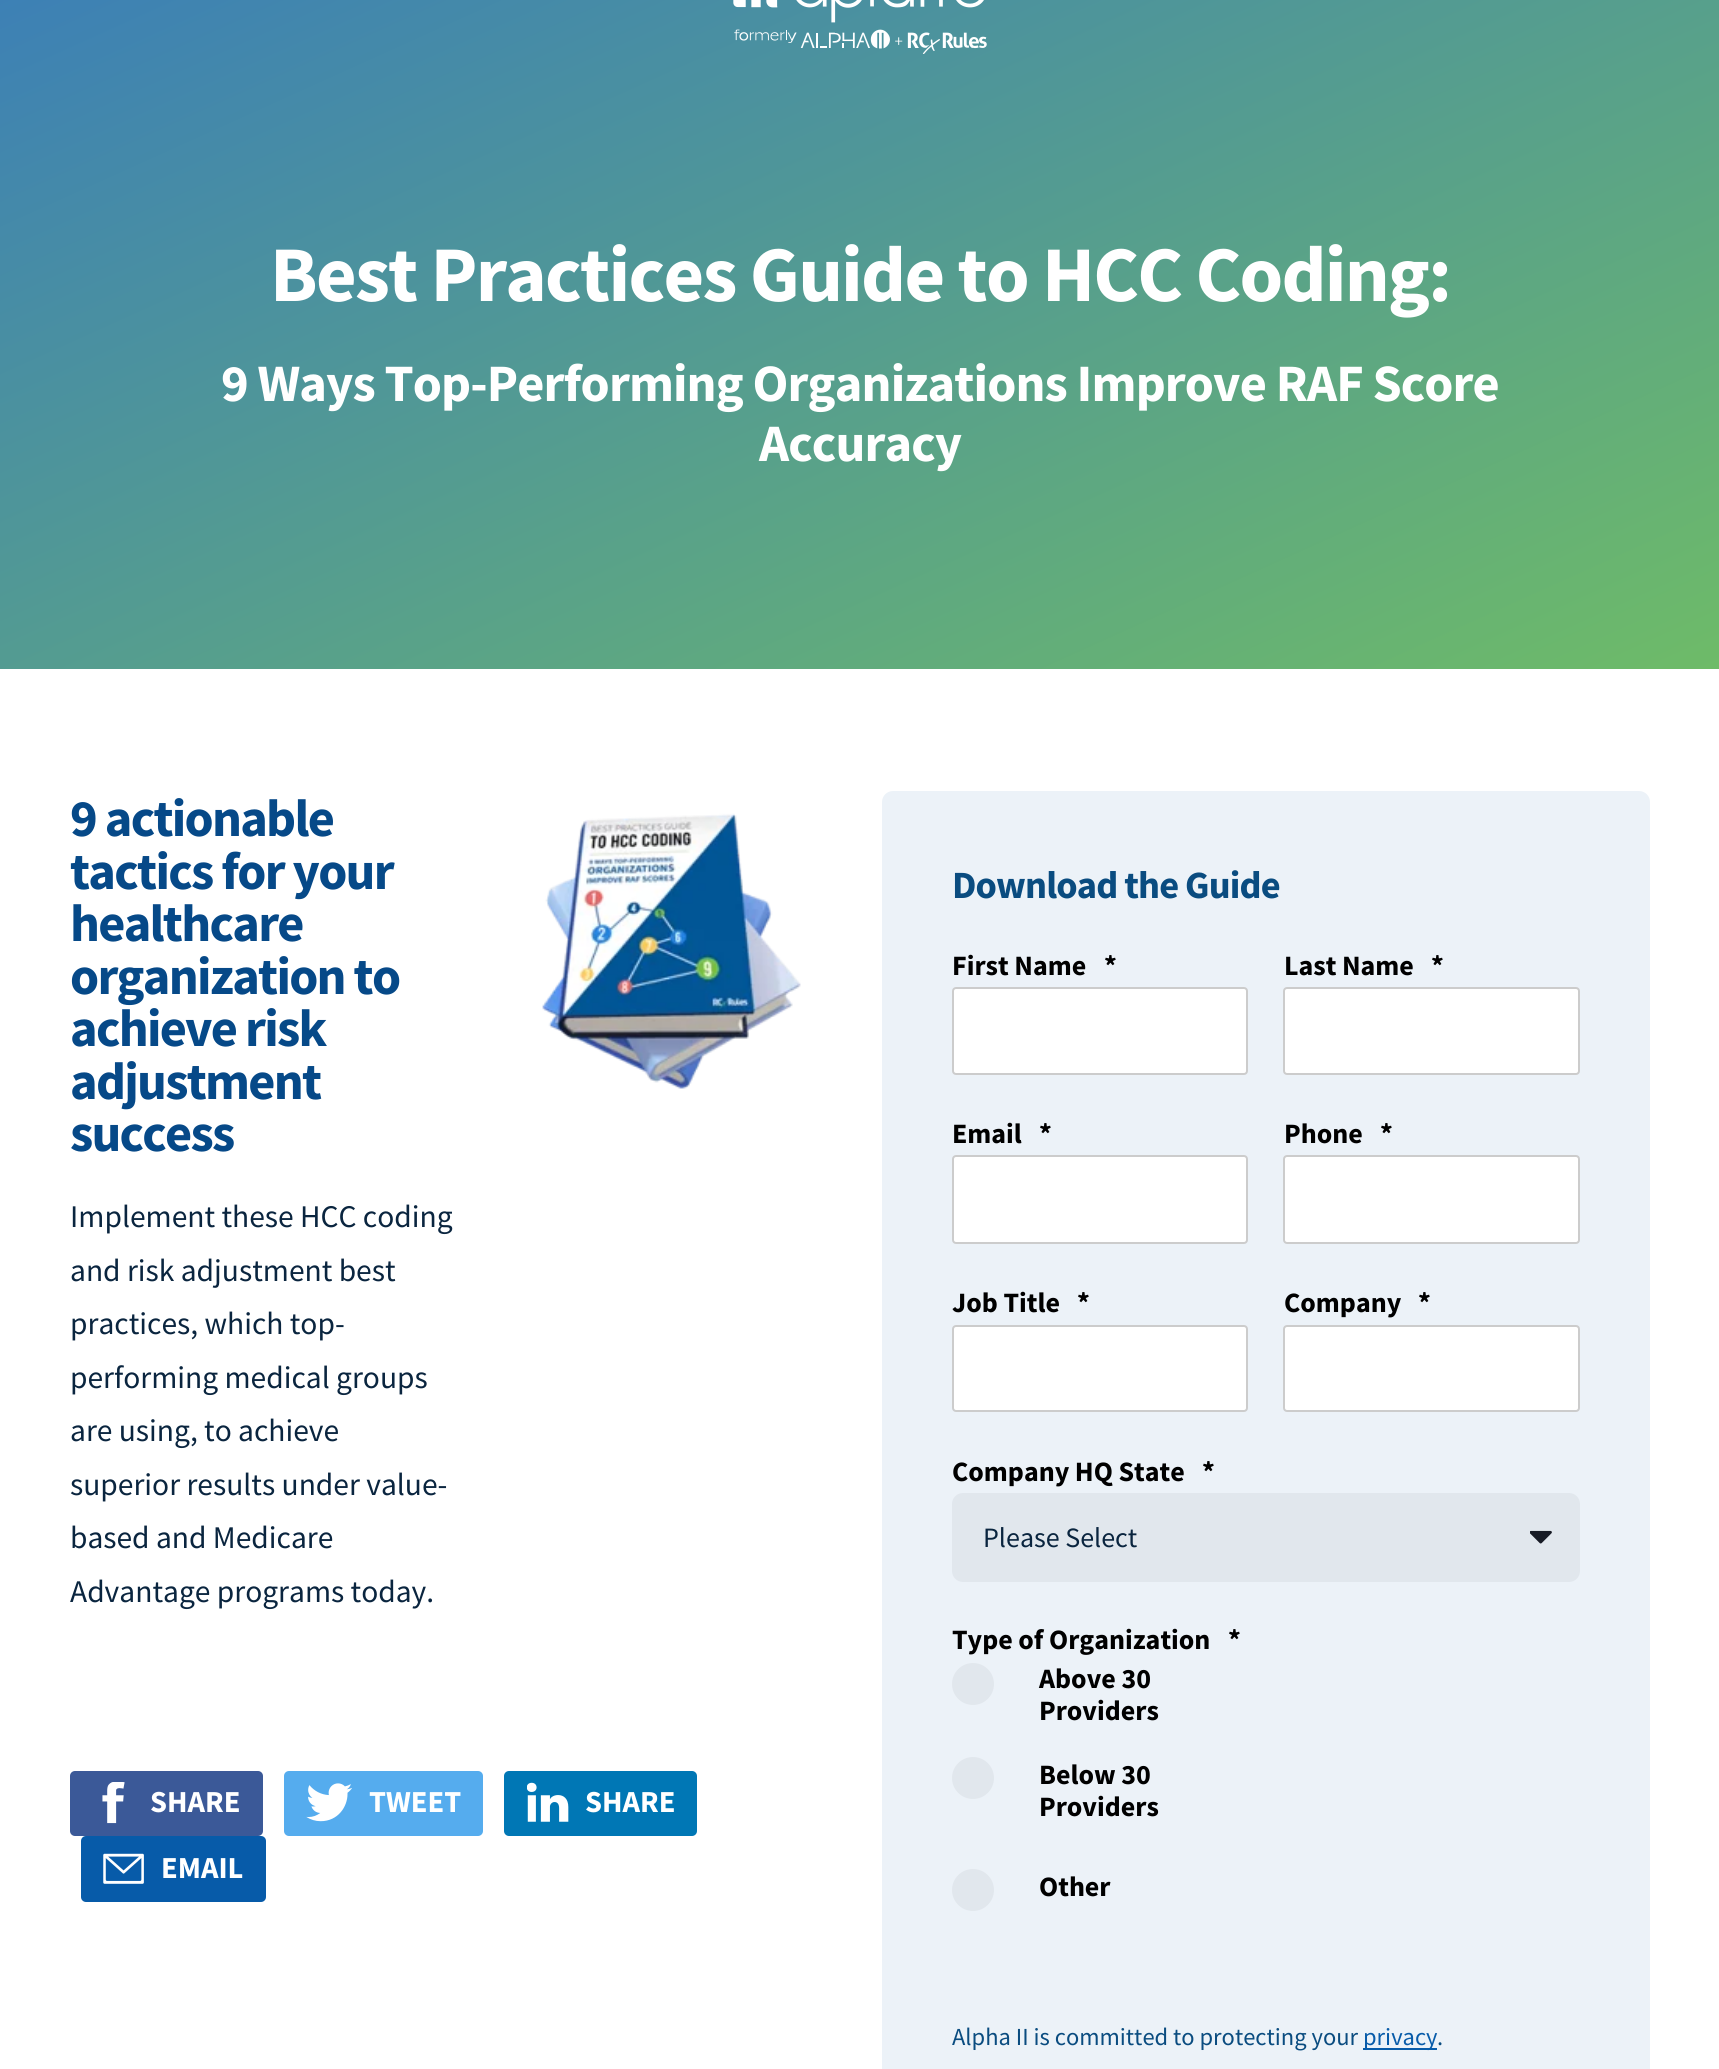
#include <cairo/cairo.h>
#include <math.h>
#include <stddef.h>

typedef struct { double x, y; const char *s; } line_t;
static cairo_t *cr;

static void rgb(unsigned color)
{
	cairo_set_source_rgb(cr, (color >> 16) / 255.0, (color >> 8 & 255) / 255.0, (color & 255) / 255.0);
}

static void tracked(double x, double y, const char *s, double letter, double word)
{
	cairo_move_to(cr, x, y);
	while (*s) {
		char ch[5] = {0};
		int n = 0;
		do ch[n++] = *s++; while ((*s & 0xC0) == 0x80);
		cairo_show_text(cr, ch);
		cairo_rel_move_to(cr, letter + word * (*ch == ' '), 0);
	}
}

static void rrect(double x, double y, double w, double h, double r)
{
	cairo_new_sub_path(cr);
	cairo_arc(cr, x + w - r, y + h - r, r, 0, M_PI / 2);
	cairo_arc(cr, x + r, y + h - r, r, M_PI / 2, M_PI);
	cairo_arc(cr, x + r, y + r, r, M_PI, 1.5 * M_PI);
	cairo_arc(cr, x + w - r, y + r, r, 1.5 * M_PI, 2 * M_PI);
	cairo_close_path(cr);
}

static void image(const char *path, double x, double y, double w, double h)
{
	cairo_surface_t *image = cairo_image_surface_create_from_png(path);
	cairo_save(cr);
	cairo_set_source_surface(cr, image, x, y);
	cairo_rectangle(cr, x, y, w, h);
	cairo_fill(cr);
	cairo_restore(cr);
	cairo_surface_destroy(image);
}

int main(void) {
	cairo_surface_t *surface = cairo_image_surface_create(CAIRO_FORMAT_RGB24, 1719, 2069);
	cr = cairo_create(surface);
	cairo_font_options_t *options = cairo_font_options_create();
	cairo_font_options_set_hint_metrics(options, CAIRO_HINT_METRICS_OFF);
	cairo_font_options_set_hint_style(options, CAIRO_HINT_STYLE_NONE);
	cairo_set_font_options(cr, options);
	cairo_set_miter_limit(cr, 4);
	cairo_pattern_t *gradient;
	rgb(0xffffff);
	cairo_paint(cr);
	gradient = cairo_pattern_create_linear(569, -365, 1152, 925);
	cairo_pattern_add_color_stop_rgba(gradient, 0, 0.224, 0.486, 0.733, 1);
	cairo_pattern_add_color_stop_rgba(gradient, 1, 0.431, 0.733, 0.408, 1);
	cairo_set_source(cr, gradient);
	cairo_pattern_destroy(gradient);
	cairo_rectangle(cr, 0, 0, 1719, 669);
	cairo_fill(cr);
	image("img/1.png", 733, 0, 254, 54);
	image("img/2.png", 542, 813, 259, 276);
	rgb(0x3b5998);
	rrect(70, 1771, 193, 65, 5);
	cairo_fill(cr);
	image("img/3.png", 102, 1782, 23, 42);
	rgb(0x55acee);
	rrect(284, 1771, 199, 65, 5);
	cairo_fill(cr);
	image("img/4.png", 306, 1783, 46, 39);
	rgb(0x0077b5);
	rrect(504, 1771, 193, 65, 5);
	cairo_fill(cr);
	image("img/5.png", 527, 1782, 42, 40);
	rgb(0x075ba9);
	rrect(81, 1836, 185, 66, 5);
	cairo_fill(cr);
	image("img/6.png", 103, 1853, 41, 31);
	rgb(0xecf2f8);
	rrect(882, 791, 768, 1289, 11);
	cairo_fill(cr);
	rgb(0xffffff);
	rrect(953, 988, 294, 86, 3);
	cairo_fill_preserve(cr);
	rgb(0xcccccc);
	cairo_stroke(cr);
	rgb(0xffffff);
	rrect(1284, 988, 295, 86, 3);
	cairo_fill_preserve(cr);
	rgb(0xcccccc);
	cairo_stroke(cr);
	rgb(0xffffff);
	rrect(953, 1156, 294, 87, 3);
	cairo_fill_preserve(cr);
	rgb(0xcccccc);
	cairo_stroke(cr);
	rgb(0xffffff);
	rrect(1284, 1156, 295, 87, 3);
	cairo_fill_preserve(cr);
	rgb(0xcccccc);
	cairo_stroke(cr);
	rgb(0xffffff);
	rrect(953, 1326, 294, 85, 3);
	cairo_fill_preserve(cr);
	rgb(0xcccccc);
	cairo_stroke(cr);
	rgb(0xffffff);
	rrect(1284, 1326, 295, 85, 3);
	cairo_fill_preserve(cr);
	rgb(0xcccccc);
	cairo_stroke(cr);
	rgb(0xe1e7ed);
	rrect(952, 1493, 628, 89, 11);
	cairo_fill(cr);
	image("img/7.png", 1530, 1530, 22, 14);
	cairo_arc(cr, 973, 1684, 21, 0, 2 * M_PI);
	cairo_fill(cr);
	cairo_arc(cr, 973, 1778, 21, 0, 2 * M_PI);
	cairo_fill(cr);
	cairo_arc(cr, 973, 1890, 21, 0, 2 * M_PI);
	cairo_fill(cr);
	rgb(0x075ba9);
	cairo_rectangle(cr, 1363, 2048, 74, 2);
	cairo_fill(cr);
	cairo_select_font_face(cr, "Source Sans Pro", CAIRO_FONT_SLANT_NORMAL, CAIRO_FONT_WEIGHT_BOLD);
	cairo_set_font_size(cr, 78.75);
	rgb(0xffffff);
	tracked(270, 301, "Best Practices Guide to HCC Coding:", -1.75, 0);
	cairo_set_font_size(cr, 52.5);
	tracked(221, 401, "9 Ways Top-Performing Organizations Improve RAF Score", -0.88, 0);
	tracked(759, 461, "Accuracy", -0.88, 0);
	rgb(0x064988);
	{
		static const line_t items[] = {
			{70, 836, "9 actionable"},
			{70, 889, "tactics for your"},
			{70, 941, "healthcare"},
			{70, 994, "organization to"},
			{70, 1046, "achieve risk"},
			{70, 1099, "adjustment"},
			{70, 1151, "success"},
		};
		for (size_t i = 0; i < sizeof items / sizeof *items; i++) {
			tracked(items[i].x, items[i].y, items[i].s, -1.75, 0);
		}
	}
	cairo_select_font_face(cr, "Source Sans Pro", CAIRO_FONT_SLANT_NORMAL, CAIRO_FONT_WEIGHT_NORMAL);
	cairo_set_font_size(cr, 31.5);
	rgb(0x0a253f);
	{
		static const line_t items[] = {
			{70, 1227, "Implement these HCC coding"},
			{70, 1281, "and risk adjustment best"},
			{70, 1334, "practices, which top-"},
			{70, 1388, "performing medical groups"},
			{70, 1441, "are using, to achieve"},
			{70, 1495, "superior results under value-"},
			{70, 1548, "based and Medicare"},
			{70, 1602, "Advantage programs today."},
		};
		for (size_t i = 0; i < sizeof items / sizeof *items; i++) {
			cairo_move_to(cr, items[i].x, items[i].y);
			cairo_show_text(cr, items[i].s);
		}
	}
	cairo_select_font_face(cr, "Source Sans Pro", CAIRO_FONT_SLANT_NORMAL, CAIRO_FONT_WEIGHT_BOLD);
	cairo_set_font_size(cr, 30.5);
	rgb(0xffffff);
	{
		static const line_t items[] = {
			{150, 1812, "SHARE"},
			{369, 1812, "TWEET"},
			{585, 1812, "SHARE"},
			{161, 1878, "EMAIL"},
		};
		for (size_t i = 0; i < sizeof items / sizeof *items; i++) {
			cairo_move_to(cr, items[i].x, items[i].y);
			cairo_show_text(cr, items[i].s);
		}
	}
	cairo_set_font_size(cr, 38.5);
	rgb(0x0a4c80);
	tracked(952, 898, "Download the Guide", -0.88, 0);
	cairo_set_font_size(cr, 28);
	rgb(0x000000);
	{
		static const line_t items[] = {
			{952, 975, "First Name"},
			{1104, 975, "*"},
			{1284, 975, "Last Name"},
			{1431, 975, "*"},
			{952, 1143, "Email"},
			{1039, 1143, "*"},
			{1284, 1143, "Phone"},
			{1380, 1143, "*"},
			{952, 1312, "Job Title"},
			{1077, 1312, "*"},
			{1284, 1312, "Company"},
			{1418, 1312, "*"},
			{952, 1481, "Company HQ State"},
			{1202, 1481, "*"},
		};
		for (size_t i = 0; i < sizeof items / sizeof *items; i++) {
			cairo_move_to(cr, items[i].x, items[i].y);
			cairo_show_text(cr, items[i].s);
		}
	}
	cairo_select_font_face(cr, "Source Sans Pro", CAIRO_FONT_SLANT_NORMAL, CAIRO_FONT_WEIGHT_NORMAL);
	rgb(0x0a253f);
	cairo_move_to(cr, 983, 1547);
	cairo_show_text(cr, "Please Select");
	cairo_select_font_face(cr, "Source Sans Pro", CAIRO_FONT_SLANT_NORMAL, CAIRO_FONT_WEIGHT_BOLD);
	rgb(0x000000);
	{
		static const line_t items[] = {
			{952, 1649, "Type of Organization"},
			{1228, 1649, "*"},
			{1039, 1688, "Above 30"},
			{1039, 1720, "Providers"},
			{1039, 1784, "Below 30"},
			{1039, 1816, "Providers"},
			{1039, 1896, "Other"},
		};
		for (size_t i = 0; i < sizeof items / sizeof *items; i++) {
			cairo_move_to(cr, items[i].x, items[i].y);
			cairo_show_text(cr, items[i].s);
		}
	}
	cairo_select_font_face(cr, "Source Sans Pro", CAIRO_FONT_SLANT_NORMAL, CAIRO_FONT_WEIGHT_NORMAL);
	cairo_set_font_size(cr, 24.5);
	rgb(0x0a4c80);
	cairo_move_to(cr, 952, 2045);
	cairo_show_text(cr, "Alpha II is committed to protecting your");
	rgb(0x075ba9);
	cairo_move_to(cr, 1363, 2045);
	cairo_show_text(cr, "privacy");
	rgb(0x0a4c80);
	cairo_move_to(cr, 1437, 2045);
	cairo_show_text(cr, ".");
	cairo_surface_write_to_png(surface, "page.png");
	cairo_font_options_destroy(options);
	cairo_destroy(cr);
	cairo_surface_destroy(surface);
	return 0;
}
